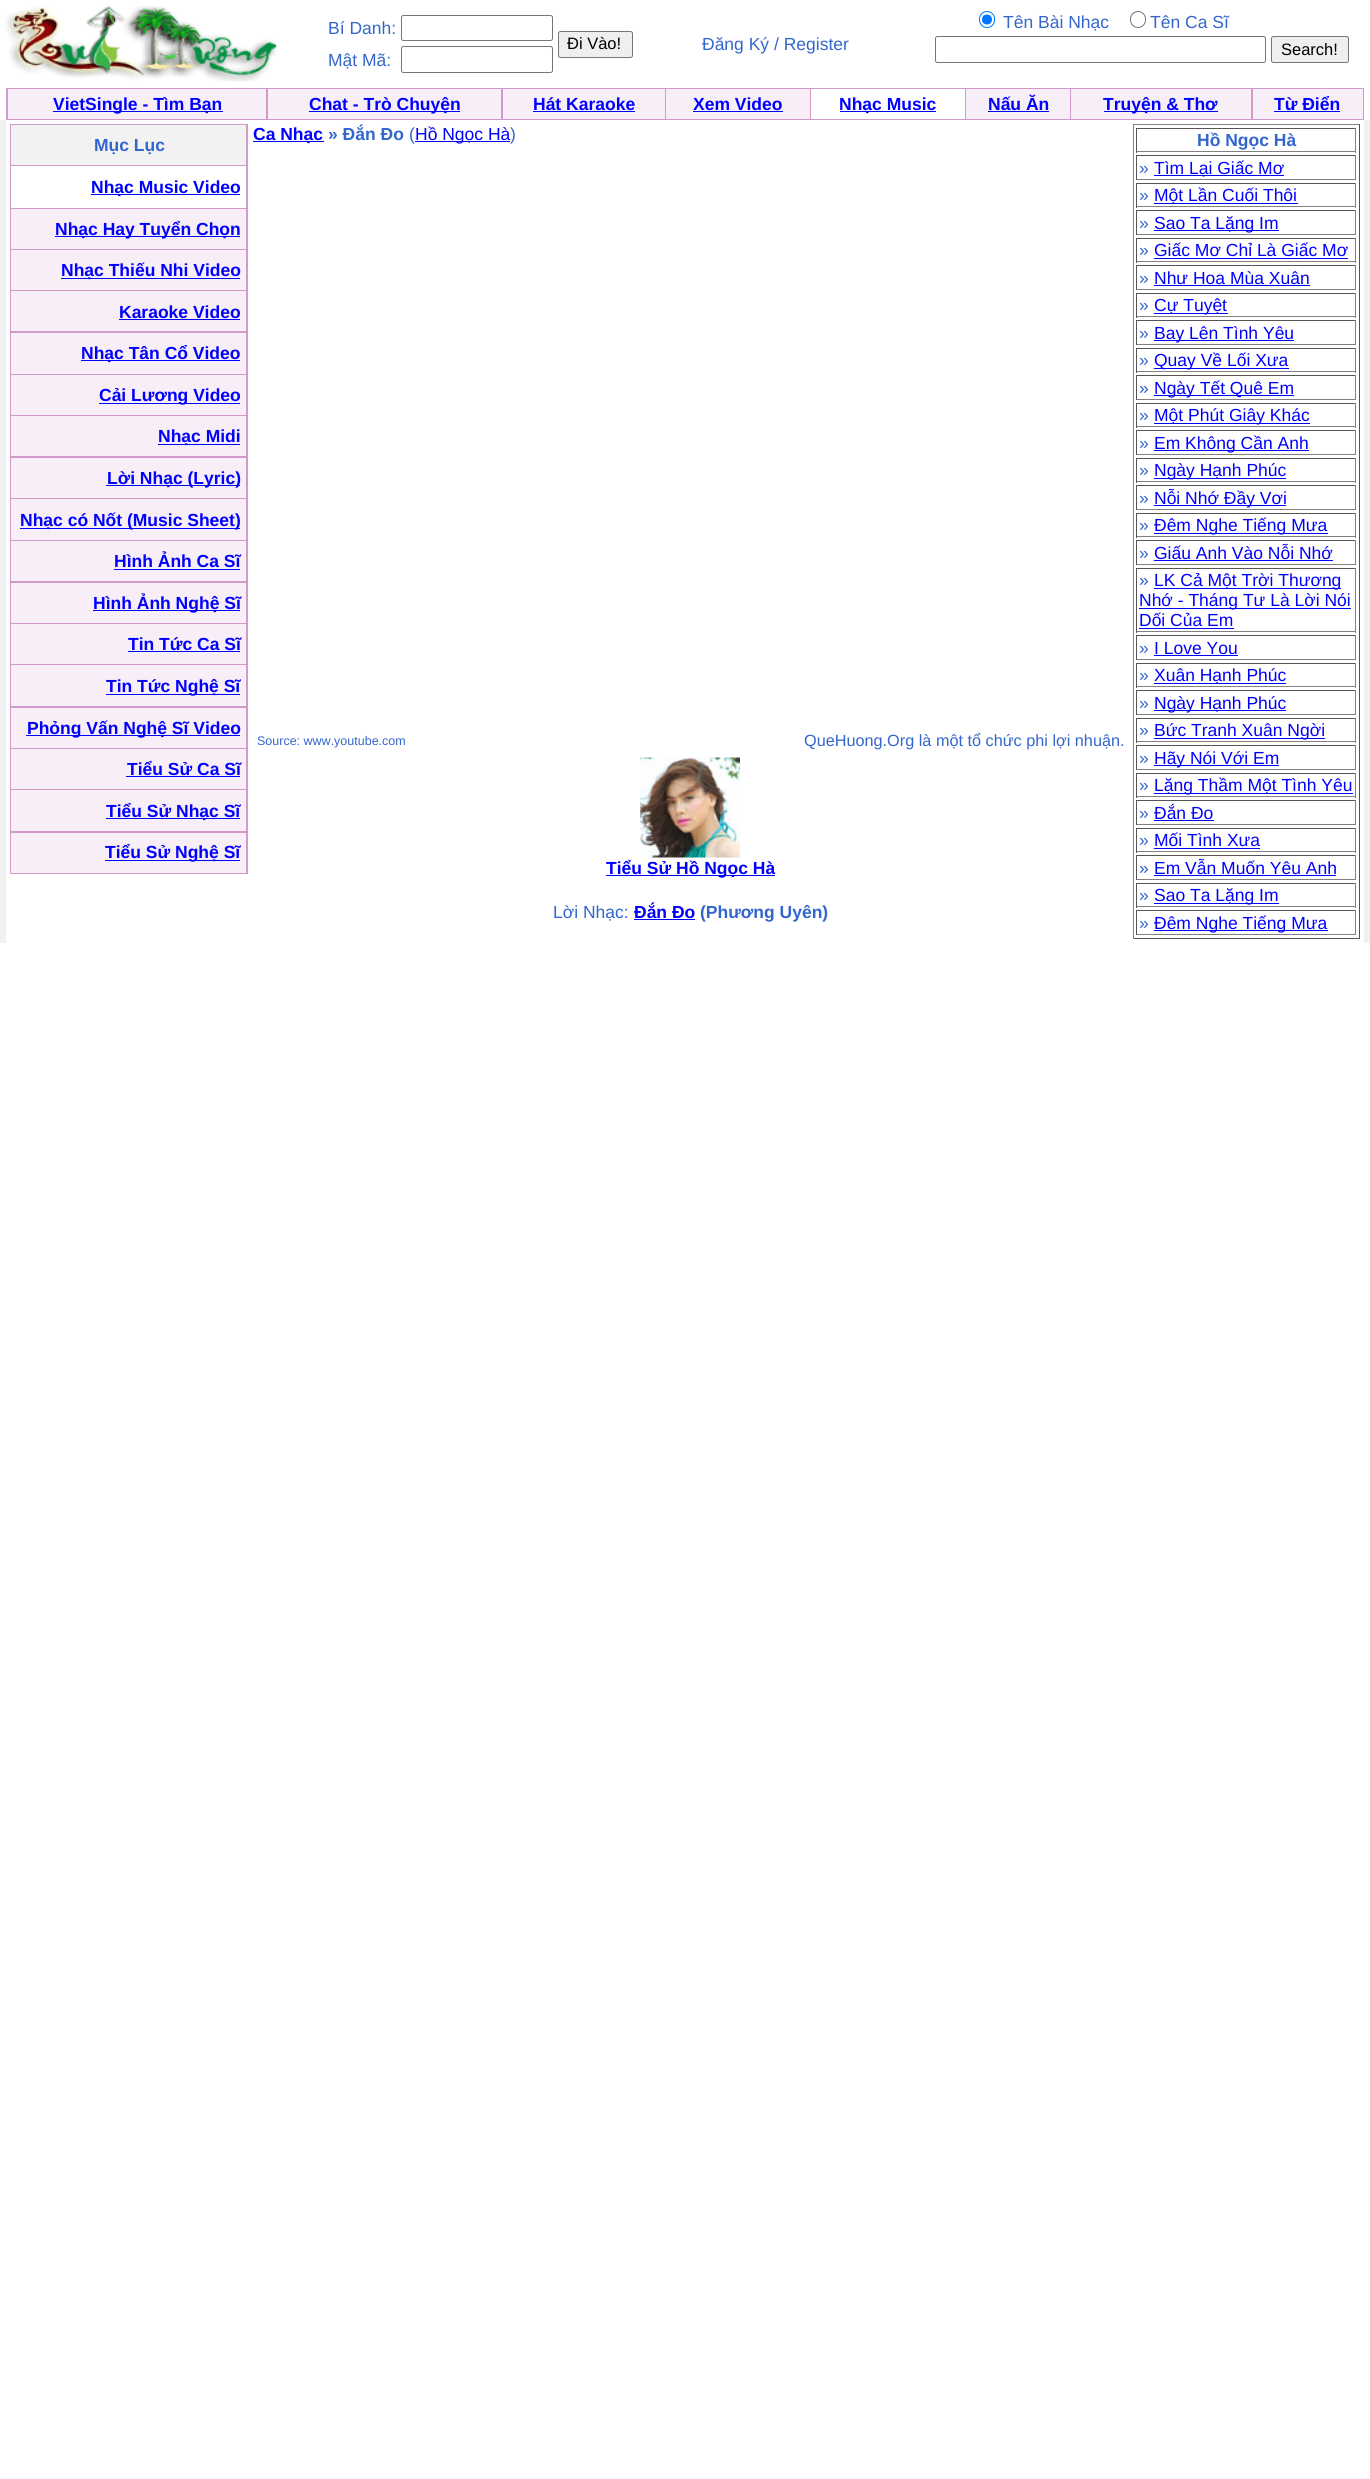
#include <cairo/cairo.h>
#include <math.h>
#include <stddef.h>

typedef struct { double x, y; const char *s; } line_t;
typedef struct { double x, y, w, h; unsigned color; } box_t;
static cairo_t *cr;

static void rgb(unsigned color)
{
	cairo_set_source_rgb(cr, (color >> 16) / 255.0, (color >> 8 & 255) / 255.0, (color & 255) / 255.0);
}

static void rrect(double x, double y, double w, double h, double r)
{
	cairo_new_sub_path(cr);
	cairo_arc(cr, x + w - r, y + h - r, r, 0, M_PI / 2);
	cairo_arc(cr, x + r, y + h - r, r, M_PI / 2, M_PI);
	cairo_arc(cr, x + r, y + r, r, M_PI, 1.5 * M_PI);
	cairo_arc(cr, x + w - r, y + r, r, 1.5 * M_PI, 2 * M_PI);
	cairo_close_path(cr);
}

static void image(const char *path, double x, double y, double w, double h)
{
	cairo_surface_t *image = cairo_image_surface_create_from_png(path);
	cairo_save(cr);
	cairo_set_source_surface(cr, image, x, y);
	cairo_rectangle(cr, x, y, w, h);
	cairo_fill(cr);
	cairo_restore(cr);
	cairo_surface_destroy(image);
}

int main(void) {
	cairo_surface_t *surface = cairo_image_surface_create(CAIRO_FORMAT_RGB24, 1370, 2479);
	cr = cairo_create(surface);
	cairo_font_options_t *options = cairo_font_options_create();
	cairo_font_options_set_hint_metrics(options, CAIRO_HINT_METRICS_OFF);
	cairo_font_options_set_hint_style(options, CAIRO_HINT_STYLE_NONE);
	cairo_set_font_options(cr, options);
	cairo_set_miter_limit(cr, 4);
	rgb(0xffffff);
	cairo_paint(cr);
	image("img/1.png", 5, 6, 272, 76);
	rrect(401.5, 15.5, 151, 25, 2);
	rgb(0x767676);
	cairo_set_line_width(cr, 1);
	cairo_stroke(cr);
	rgb(0xefefef);
	rrect(558.5, 31.5, 74, 26, 2);
	cairo_fill_preserve(cr);
	rgb(0x767676);
	cairo_stroke(cr);
	rrect(401.5, 46.5, 151, 26, 2);
	cairo_stroke(cr);
	rrect(979.5, 11.5, 15, 16, 7.5);
	rgb(0x0075ff);
	cairo_stroke(cr);
	cairo_arc(cr, 987, 19.5, 5, 0, 2 * M_PI);
	cairo_fill(cr);
	rrect(1130.5, 11.5, 15, 16, 7.5);
	rgb(0x767676);
	cairo_stroke(cr);
	rrect(935.5, 36.5, 330, 26, 2);
	cairo_stroke(cr);
	rgb(0xefefef);
	rrect(1271.5, 36.5, 77, 26, 2);
	cairo_fill_preserve(cr);
	rgb(0x767676);
	cairo_stroke(cr);
	{
		static const box_t items[] = {
			{6, 88, 1358, 32, 0xd29ac8},
			{8, 89, 258, 30, 0xf7eef7},
			{53, 111, 170, 1, 0x0000ff},
			{268, 89, 233, 30, 0xf7eef7},
			{309, 111, 151, 1, 0x0000ff},
			{503, 89, 162, 30, 0xf7eef7},
			{533, 111, 102, 1, 0x0000ff},
			{666, 89, 144, 30, 0xf7eef7},
			{693, 111, 90, 1, 0x0000ff},
			{811, 89, 154, 30, 0xffffff},
			{840, 111, 96, 1, 0x0000ff},
			{966, 89, 104, 30, 0xf7eef7},
			{988, 111, 61, 1, 0x0000ff},
			{1071, 89, 180, 30, 0xf7eef7},
			{1104, 111, 114, 1, 0x0000ff},
			{1253, 89, 110, 30, 0xf7eef7},
			{1274, 111, 66, 1, 0x0000ff},
			{0, 120, 1370, 823, 0xf1f1f1},
			{6, 120, 1358, 823, 0xffffff},
			{10, 124, 238, 750, 0xd29ac8},
			{11, 125, 235, 40, 0xf2f2f2},
			{11, 166, 235, 42, 0xffffff},
			{91, 194, 149, 1, 0x0000ff},
			{11, 209, 235, 40, 0xf7eef7},
			{55, 236, 185, 1, 0x0000ff},
			{11, 250, 235, 40, 0xf7eef7},
			{61, 278, 179, 1, 0x0000ff},
			{11, 291, 235, 40, 0xf7eef7},
			{119, 319, 121, 1, 0x0000ff},
			{11, 333, 235, 41, 0xf7eef7},
			{81, 360, 159, 1, 0x0000ff},
			{11, 375, 235, 40, 0xf7eef7},
			{99, 403, 141, 1, 0x0000ff},
			{11, 416, 235, 40, 0xf7eef7},
			{158, 444, 82, 1, 0x0000ff},
			{11, 458, 235, 40, 0xf7eef7},
			{106, 485, 134, 1, 0x0000ff},
			{11, 499, 235, 41, 0xf7eef7},
			{20, 528, 220, 1, 0x0000ff},
			{11, 541, 235, 40, 0xf7eef7},
			{114, 569, 126, 1, 0x0000ff},
			{11, 583, 235, 40, 0xf7eef7},
			{93, 610, 147, 1, 0x0000ff},
			{11, 624, 235, 40, 0xf7eef7},
			{128, 651, 112, 1, 0x0000ff},
			{11, 665, 235, 41, 0xf7eef7},
			{106, 694, 134, 1, 0x0000ff},
			{11, 708, 235, 40, 0xf7eef7},
			{26, 735, 214, 1, 0x0000ff},
			{11, 749, 235, 40, 0xf7eef7},
			{126, 776, 114, 1, 0x0000ff},
			{11, 790, 235, 41, 0xf7eef7},
			{106, 818, 134, 1, 0x0000ff},
			{11, 833, 235, 40, 0xf7eef7},
			{105, 860, 135, 1, 0x0000ff},
			{253, 141, 71, 1, 0x0000ff},
			{415, 141, 95, 1, 0x0000ff},
		};
		for (size_t i = 0; i < sizeof items / sizeof *items; i++) {
			rgb(items[i].color);
			cairo_rectangle(cr, items[i].x, items[i].y, items[i].w, items[i].h);
			cairo_fill(cr);
		}
	}
	image("img/2.png", 640, 757, 100, 101);
	{
		static const box_t items[] = {
			{606, 875, 169, 1, 0x0000ff},
			{634, 919, 61, 1, 0x0000ff},
			{1133, 124, 227, 1, 0x808080},
			{1359, 124, 1, 815, 0x555555},
			{1133, 938, 227, 1, 0x555555},
			{1133, 124, 1, 815, 0x808080},
			{1136, 128, 220, 1, 0x555555},
			{1355, 128, 1, 25, 0x808080},
			{1136, 151, 220, 1, 0x808080},
			{1136, 128, 1, 25, 0x555555},
			{1136, 155, 220, 1, 0x555555},
			{1355, 155, 1, 25, 0x808080},
			{1136, 179, 220, 1, 0x808080},
			{1136, 155, 1, 25, 0x555555},
			{1154, 175, 130, 1, 0x0000ff},
			{1136, 183, 220, 1, 0x555555},
			{1355, 183, 1, 25, 0x808080},
			{1136, 206, 220, 1, 0x808080},
			{1136, 183, 1, 25, 0x555555},
			{1154, 203, 144, 1, 0x0000ff},
			{1136, 210, 220, 1, 0x555555},
			{1355, 210, 1, 25, 0x808080},
			{1136, 234, 220, 1, 0x808080},
			{1136, 210, 1, 25, 0x555555},
			{1154, 230, 125, 1, 0x0000ff},
			{1136, 238, 220, 1, 0x555555},
			{1355, 238, 1, 25, 0x808080},
			{1136, 261, 220, 1, 0x808080},
			{1136, 238, 1, 25, 0x555555},
			{1154, 258, 194, 1, 0x0000ff},
			{1136, 265, 220, 1, 0x555555},
			{1355, 265, 1, 25, 0x808080},
			{1136, 289, 220, 1, 0x808080},
			{1136, 265, 1, 25, 0x555555},
			{1154, 285, 156, 1, 0x0000ff},
			{1136, 293, 220, 1, 0x555555},
			{1355, 293, 1, 25, 0x808080},
			{1136, 316, 220, 1, 0x808080},
			{1136, 293, 1, 25, 0x555555},
			{1154, 313, 74, 1, 0x0000ff},
			{1136, 320, 220, 1, 0x555555},
			{1355, 320, 1, 25, 0x808080},
			{1136, 344, 220, 1, 0x808080},
			{1136, 320, 1, 25, 0x555555},
			{1154, 340, 140, 1, 0x0000ff},
			{1136, 348, 220, 1, 0x555555},
			{1355, 348, 1, 25, 0x808080},
			{1136, 371, 220, 1, 0x808080},
			{1136, 348, 1, 25, 0x555555},
			{1154, 368, 135, 1, 0x0000ff},
			{1136, 375, 220, 1, 0x555555},
			{1355, 375, 1, 25, 0x808080},
			{1136, 399, 220, 1, 0x808080},
			{1136, 375, 1, 25, 0x555555},
			{1154, 395, 140, 1, 0x0000ff},
			{1136, 403, 220, 1, 0x555555},
			{1355, 403, 1, 25, 0x808080},
			{1136, 426, 220, 1, 0x808080},
			{1136, 403, 1, 25, 0x555555},
			{1154, 423, 156, 1, 0x0000ff},
			{1136, 430, 220, 1, 0x555555},
			{1355, 430, 1, 25, 0x808080},
			{1136, 454, 220, 1, 0x808080},
			{1136, 430, 1, 25, 0x555555},
			{1154, 450, 155, 1, 0x0000ff},
			{1136, 458, 220, 1, 0x555555},
			{1355, 458, 1, 25, 0x808080},
			{1136, 481, 220, 1, 0x808080},
			{1136, 458, 1, 25, 0x555555},
			{1154, 478, 132, 1, 0x0000ff},
			{1136, 485, 220, 1, 0x555555},
			{1355, 485, 1, 25, 0x808080},
			{1136, 509, 220, 1, 0x808080},
			{1136, 485, 1, 25, 0x555555},
			{1154, 505, 132, 1, 0x0000ff},
			{1136, 513, 220, 1, 0x555555},
			{1355, 513, 1, 25, 0x808080},
			{1136, 536, 220, 1, 0x808080},
			{1136, 513, 1, 25, 0x555555},
			{1154, 533, 174, 1, 0x0000ff},
			{1136, 540, 220, 1, 0x555555},
			{1355, 540, 1, 25, 0x808080},
			{1136, 564, 220, 1, 0x808080},
			{1136, 540, 1, 25, 0x555555},
			{1154, 560, 179, 1, 0x0000ff},
			{1136, 568, 220, 1, 0x555555},
			{1355, 568, 1, 65, 0x808080},
			{1136, 631, 220, 1, 0x808080},
			{1136, 568, 1, 65, 0x555555},
			{1154, 588, 187, 1, 0x0000ff},
			{1139, 608, 212, 1, 0x0000ff},
			{1139, 628, 95, 1, 0x0000ff},
			{1136, 635, 220, 1, 0x555555},
			{1355, 635, 1, 25, 0x808080},
			{1136, 659, 220, 1, 0x808080},
			{1136, 635, 1, 25, 0x555555},
			{1154, 655, 84, 1, 0x0000ff},
			{1136, 663, 220, 1, 0x555555},
			{1355, 663, 1, 25, 0x808080},
			{1136, 686, 220, 1, 0x808080},
			{1136, 663, 1, 25, 0x555555},
			{1154, 683, 132, 1, 0x0000ff},
			{1136, 690, 220, 1, 0x555555},
			{1355, 690, 1, 25, 0x808080},
			{1136, 714, 220, 1, 0x808080},
			{1136, 690, 1, 25, 0x555555},
			{1154, 710, 132, 1, 0x0000ff},
			{1136, 718, 220, 1, 0x555555},
			{1355, 718, 1, 25, 0x808080},
			{1136, 741, 220, 1, 0x808080},
			{1136, 718, 1, 25, 0x555555},
			{1154, 738, 171, 1, 0x0000ff},
			{1136, 745, 220, 1, 0x555555},
			{1355, 745, 1, 25, 0x808080},
			{1136, 769, 220, 1, 0x808080},
			{1136, 745, 1, 25, 0x555555},
			{1154, 765, 125, 1, 0x0000ff},
			{1136, 773, 220, 1, 0x555555},
			{1355, 773, 1, 25, 0x808080},
			{1136, 796, 220, 1, 0x808080},
			{1136, 773, 1, 25, 0x555555},
			{1154, 793, 199, 1, 0x0000ff},
			{1136, 800, 220, 1, 0x555555},
			{1355, 800, 1, 25, 0x808080},
			{1136, 824, 220, 1, 0x808080},
			{1136, 800, 1, 25, 0x555555},
			{1154, 820, 60, 1, 0x0000ff},
			{1136, 828, 220, 1, 0x555555},
			{1355, 828, 1, 25, 0x808080},
			{1136, 851, 220, 1, 0x808080},
			{1136, 828, 1, 25, 0x555555},
			{1154, 848, 106, 1, 0x0000ff},
			{1136, 855, 220, 1, 0x555555},
			{1355, 855, 1, 25, 0x808080},
			{1136, 879, 220, 1, 0x808080},
			{1136, 855, 1, 25, 0x555555},
			{1154, 875, 182, 1, 0x0000ff},
			{1136, 883, 220, 1, 0x555555},
			{1355, 883, 1, 25, 0x808080},
			{1136, 906, 220, 1, 0x808080},
			{1136, 883, 1, 25, 0x555555},
			{1154, 903, 125, 1, 0x0000ff},
			{1136, 910, 220, 1, 0x555555},
			{1355, 910, 1, 25, 0x808080},
			{1136, 934, 220, 1, 0x808080},
			{1136, 910, 1, 25, 0x555555},
			{1154, 930, 174, 1, 0x0000ff},
		};
		for (size_t i = 0; i < sizeof items / sizeof *items; i++) {
			rgb(items[i].color);
			cairo_rectangle(cr, items[i].x, items[i].y, items[i].w, items[i].h);
			cairo_fill(cr);
		}
	}
	cairo_select_font_face(cr, "Liberation Sans", CAIRO_FONT_SLANT_NORMAL, CAIRO_FONT_WEIGHT_NORMAL);
	cairo_set_font_size(cr, 17.5);
	rgb(0x3366cc);
	cairo_move_to(cr, 328, 34);
	cairo_show_text(cr, "Bí Danh:");
	cairo_set_font_size(cr, 16.5);
	rgb(0x000000);
	cairo_move_to(cr, 567, 49);
	cairo_show_text(cr, "Đi Vào!");
	cairo_set_font_size(cr, 17.5);
	rgb(0x3366cc);
	{
		static const line_t items[] = {
			{328, 66, "Mật Mã:"},
			{702, 50, "Đăng Ký / Register"},
			{1003, 28, "Tên Bài Nhạc"},
			{1150, 28, "Tên Ca Sĩ"},
		};
		for (size_t i = 0; i < sizeof items / sizeof *items; i++) {
			cairo_move_to(cr, items[i].x, items[i].y);
			cairo_show_text(cr, items[i].s);
		}
	}
	cairo_set_font_size(cr, 16.5);
	rgb(0x000000);
	cairo_move_to(cr, 1281, 55);
	cairo_show_text(cr, "Search!");
	cairo_select_font_face(cr, "Liberation Sans", CAIRO_FONT_SLANT_NORMAL, CAIRO_FONT_WEIGHT_BOLD);
	cairo_set_font_size(cr, 17.5);
	rgb(0x0000ff);
	{
		static const line_t items[] = {
			{53, 110, "VietSingle - Tìm Bạn"},
			{309, 110, "Chat - Trò Chuyện"},
			{533, 110, "Hát Karaoke"},
			{693, 110, "Xem Video"},
			{839, 110, "Nhạc Music"},
			{988, 110, "Nấu Ăn"},
			{1103, 110, "Truyện & Thơ"},
			{1274, 110, "Từ Điển"},
		};
		for (size_t i = 0; i < sizeof items / sizeof *items; i++) {
			cairo_move_to(cr, items[i].x, items[i].y);
			cairo_show_text(cr, items[i].s);
		}
	}
	rgb(0x3366cc);
	cairo_move_to(cr, 94, 151);
	cairo_show_text(cr, "Mục Lục");
	rgb(0x0000ff);
	{
		static const line_t items[] = {
			{91, 193, "Nhạc Music Video"},
			{55, 235, "Nhạc Hay Tuyển Chọn"},
			{61, 276, "Nhạc Thiếu Nhi Video"},
			{119, 318, "Karaoke Video"},
			{81, 359, "Nhạc Tân Cổ Video"},
			{99, 401, "Cải Lương Video"},
			{158, 442, "Nhạc Midi"},
			{107, 484, "Lời Nhạc (Lyric)"},
			{20, 526, "Nhạc có Nốt (Music Sheet)"},
			{114, 567, "Hình Ảnh Ca Sĩ"},
			{93, 609, "Hình Ảnh Nghệ Sĩ"},
			{128, 650, "Tin Tức Ca Sĩ"},
			{106, 692, "Tin Tức Nghệ Sĩ"},
			{27, 734, "Phỏng Vấn Nghệ Sĩ Video"},
			{127, 775, "Tiểu Sử Ca Sĩ"},
			{106, 817, "Tiểu Sử Nhạc Sĩ"},
			{105, 858, "Tiểu Sử Nghệ Sĩ"},
			{253, 140, "Ca Nhạc"},
		};
		for (size_t i = 0; i < sizeof items / sizeof *items; i++) {
			cairo_move_to(cr, items[i].x, items[i].y);
			cairo_show_text(cr, items[i].s);
		}
	}
	rgb(0x3366cc);
	cairo_move_to(cr, 328, 140);
	cairo_show_text(cr, "» Đắn Đo");
	cairo_select_font_face(cr, "Liberation Sans", CAIRO_FONT_SLANT_NORMAL, CAIRO_FONT_WEIGHT_NORMAL);
	cairo_move_to(cr, 409, 140);
	cairo_show_text(cr, "(");
	rgb(0x0000ff);
	cairo_move_to(cr, 415, 140);
	cairo_show_text(cr, "Hồ Ngọc Hà");
	rgb(0x3366cc);
	cairo_move_to(cr, 510, 140);
	cairo_show_text(cr, ")");
	cairo_set_font_size(cr, 12.5);
	cairo_move_to(cr, 257, 745);
	cairo_show_text(cr, "Source: www.youtube.com");
	cairo_set_font_size(cr, 16.25);
	cairo_move_to(cr, 804, 746);
	cairo_show_text(cr, "QueHuong.Org là một tổ chức phi lợi nhuận.");
	cairo_select_font_face(cr, "Liberation Sans", CAIRO_FONT_SLANT_NORMAL, CAIRO_FONT_WEIGHT_BOLD);
	cairo_set_font_size(cr, 17.5);
	rgb(0x0000ff);
	cairo_move_to(cr, 606, 874);
	cairo_show_text(cr, "Tiểu Sử Hồ Ngọc Hà");
	cairo_select_font_face(cr, "Liberation Sans", CAIRO_FONT_SLANT_NORMAL, CAIRO_FONT_WEIGHT_NORMAL);
	rgb(0x3366cc);
	cairo_move_to(cr, 553, 918);
	cairo_show_text(cr, "Lời Nhạc:");
	cairo_select_font_face(cr, "Liberation Sans", CAIRO_FONT_SLANT_NORMAL, CAIRO_FONT_WEIGHT_BOLD);
	rgb(0x0000ff);
	cairo_move_to(cr, 634, 918);
	cairo_show_text(cr, "Đắn Đo");
	rgb(0x3366cc);
	cairo_move_to(cr, 700, 918);
	cairo_show_text(cr, "(Phương Uyên)");
	cairo_move_to(cr, 1197, 146);
	cairo_show_text(cr, "Hồ Ngọc Hà");
	cairo_select_font_face(cr, "Liberation Sans", CAIRO_FONT_SLANT_NORMAL, CAIRO_FONT_WEIGHT_NORMAL);
	cairo_move_to(cr, 1139, 174);
	cairo_show_text(cr, "»");
	rgb(0x0000ff);
	cairo_move_to(cr, 1154, 174);
	cairo_show_text(cr, "Tìm Lại Giấc Mơ");
	rgb(0x3366cc);
	cairo_move_to(cr, 1139, 201);
	cairo_show_text(cr, "»");
	rgb(0x0000ff);
	cairo_move_to(cr, 1154, 201);
	cairo_show_text(cr, "Một Lần Cuối Thôi");
	rgb(0x3366cc);
	cairo_move_to(cr, 1139, 229);
	cairo_show_text(cr, "»");
	rgb(0x0000ff);
	cairo_move_to(cr, 1154, 229);
	cairo_show_text(cr, "Sao Ta Lặng Im");
	rgb(0x3366cc);
	cairo_move_to(cr, 1139, 256);
	cairo_show_text(cr, "»");
	rgb(0x0000ff);
	cairo_move_to(cr, 1154, 256);
	cairo_show_text(cr, "Giấc Mơ Chỉ Là Giấc Mơ");
	rgb(0x3366cc);
	cairo_move_to(cr, 1139, 284);
	cairo_show_text(cr, "»");
	rgb(0x0000ff);
	cairo_move_to(cr, 1154, 284);
	cairo_show_text(cr, "Như Hoa Mùa Xuân");
	rgb(0x3366cc);
	cairo_move_to(cr, 1139, 311);
	cairo_show_text(cr, "»");
	rgb(0x0000ff);
	cairo_move_to(cr, 1154, 311);
	cairo_show_text(cr, "Cự Tuyệt");
	rgb(0x3366cc);
	cairo_move_to(cr, 1139, 339);
	cairo_show_text(cr, "»");
	rgb(0x0000ff);
	cairo_move_to(cr, 1154, 339);
	cairo_show_text(cr, "Bay Lên Tình Yêu");
	rgb(0x3366cc);
	cairo_move_to(cr, 1139, 366);
	cairo_show_text(cr, "»");
	rgb(0x0000ff);
	cairo_move_to(cr, 1154, 366);
	cairo_show_text(cr, "Quay Về Lối Xưa");
	rgb(0x3366cc);
	cairo_move_to(cr, 1139, 394);
	cairo_show_text(cr, "»");
	rgb(0x0000ff);
	cairo_move_to(cr, 1154, 394);
	cairo_show_text(cr, "Ngày Tết Quê Em");
	rgb(0x3366cc);
	cairo_move_to(cr, 1139, 421);
	cairo_show_text(cr, "»");
	rgb(0x0000ff);
	cairo_move_to(cr, 1154, 421);
	cairo_show_text(cr, "Một Phút Giây Khác");
	rgb(0x3366cc);
	cairo_move_to(cr, 1139, 449);
	cairo_show_text(cr, "»");
	rgb(0x0000ff);
	cairo_move_to(cr, 1154, 449);
	cairo_show_text(cr, "Em Không Cần Anh");
	rgb(0x3366cc);
	cairo_move_to(cr, 1139, 476);
	cairo_show_text(cr, "»");
	rgb(0x0000ff);
	cairo_move_to(cr, 1154, 476);
	cairo_show_text(cr, "Ngày Hạnh Phúc");
	rgb(0x3366cc);
	cairo_move_to(cr, 1139, 504);
	cairo_show_text(cr, "»");
	rgb(0x0000ff);
	cairo_move_to(cr, 1154, 504);
	cairo_show_text(cr, "Nỗi Nhớ Đầy Vơi");
	rgb(0x3366cc);
	cairo_move_to(cr, 1139, 531);
	cairo_show_text(cr, "»");
	rgb(0x0000ff);
	cairo_move_to(cr, 1154, 531);
	cairo_show_text(cr, "Đêm Nghe Tiếng Mưa");
	rgb(0x3366cc);
	cairo_move_to(cr, 1139, 559);
	cairo_show_text(cr, "»");
	rgb(0x0000ff);
	cairo_move_to(cr, 1154, 559);
	cairo_show_text(cr, "Giấu Anh Vào Nỗi Nhớ");
	rgb(0x3366cc);
	cairo_move_to(cr, 1139, 586);
	cairo_show_text(cr, "»");
	rgb(0x0000ff);
	{
		static const line_t items[] = {
			{1154, 586, "LK Cả Một Trời Thương"},
			{1139, 606, "Nhớ - Tháng Tư Là Lời Nói"},
			{1139, 626, "Dối Của Em"},
		};
		for (size_t i = 0; i < sizeof items / sizeof *items; i++) {
			cairo_move_to(cr, items[i].x, items[i].y);
			cairo_show_text(cr, items[i].s);
		}
	}
	rgb(0x3366cc);
	cairo_move_to(cr, 1139, 654);
	cairo_show_text(cr, "»");
	rgb(0x0000ff);
	cairo_move_to(cr, 1154, 654);
	cairo_show_text(cr, "I Love You");
	rgb(0x3366cc);
	cairo_move_to(cr, 1139, 681);
	cairo_show_text(cr, "»");
	rgb(0x0000ff);
	cairo_move_to(cr, 1154, 681);
	cairo_show_text(cr, "Xuân Hạnh Phúc");
	rgb(0x3366cc);
	cairo_move_to(cr, 1139, 709);
	cairo_show_text(cr, "»");
	rgb(0x0000ff);
	cairo_move_to(cr, 1154, 709);
	cairo_show_text(cr, "Ngày Hạnh Phúc");
	rgb(0x3366cc);
	cairo_move_to(cr, 1139, 736);
	cairo_show_text(cr, "»");
	rgb(0x0000ff);
	cairo_move_to(cr, 1154, 736);
	cairo_show_text(cr, "Bức Tranh Xuân Ngời");
	rgb(0x3366cc);
	cairo_move_to(cr, 1139, 764);
	cairo_show_text(cr, "»");
	rgb(0x0000ff);
	cairo_move_to(cr, 1154, 764);
	cairo_show_text(cr, "Hãy Nói Với Em");
	rgb(0x3366cc);
	cairo_move_to(cr, 1139, 791);
	cairo_show_text(cr, "»");
	rgb(0x0000ff);
	cairo_move_to(cr, 1154, 791);
	cairo_show_text(cr, "Lặng Thầm Một Tình Yêu");
	rgb(0x3366cc);
	cairo_move_to(cr, 1139, 819);
	cairo_show_text(cr, "»");
	rgb(0x0000ff);
	cairo_move_to(cr, 1154, 819);
	cairo_show_text(cr, "Đắn Đo");
	rgb(0x3366cc);
	cairo_move_to(cr, 1139, 846);
	cairo_show_text(cr, "»");
	rgb(0x0000ff);
	cairo_move_to(cr, 1154, 846);
	cairo_show_text(cr, "Mối Tình Xưa");
	rgb(0x3366cc);
	cairo_move_to(cr, 1139, 874);
	cairo_show_text(cr, "»");
	rgb(0x0000ff);
	cairo_move_to(cr, 1154, 874);
	cairo_show_text(cr, "Em Vẫn Muốn Yêu Anh");
	rgb(0x3366cc);
	cairo_move_to(cr, 1139, 901);
	cairo_show_text(cr, "»");
	rgb(0x0000ff);
	cairo_move_to(cr, 1154, 901);
	cairo_show_text(cr, "Sao Ta Lặng Im");
	rgb(0x3366cc);
	cairo_move_to(cr, 1139, 929);
	cairo_show_text(cr, "»");
	rgb(0x0000ff);
	cairo_move_to(cr, 1154, 929);
	cairo_show_text(cr, "Đêm Nghe Tiếng Mưa");
	cairo_surface_write_to_png(surface, "page.png");
	cairo_font_options_destroy(options);
	cairo_destroy(cr);
	cairo_surface_destroy(surface);
	return 0;
}
